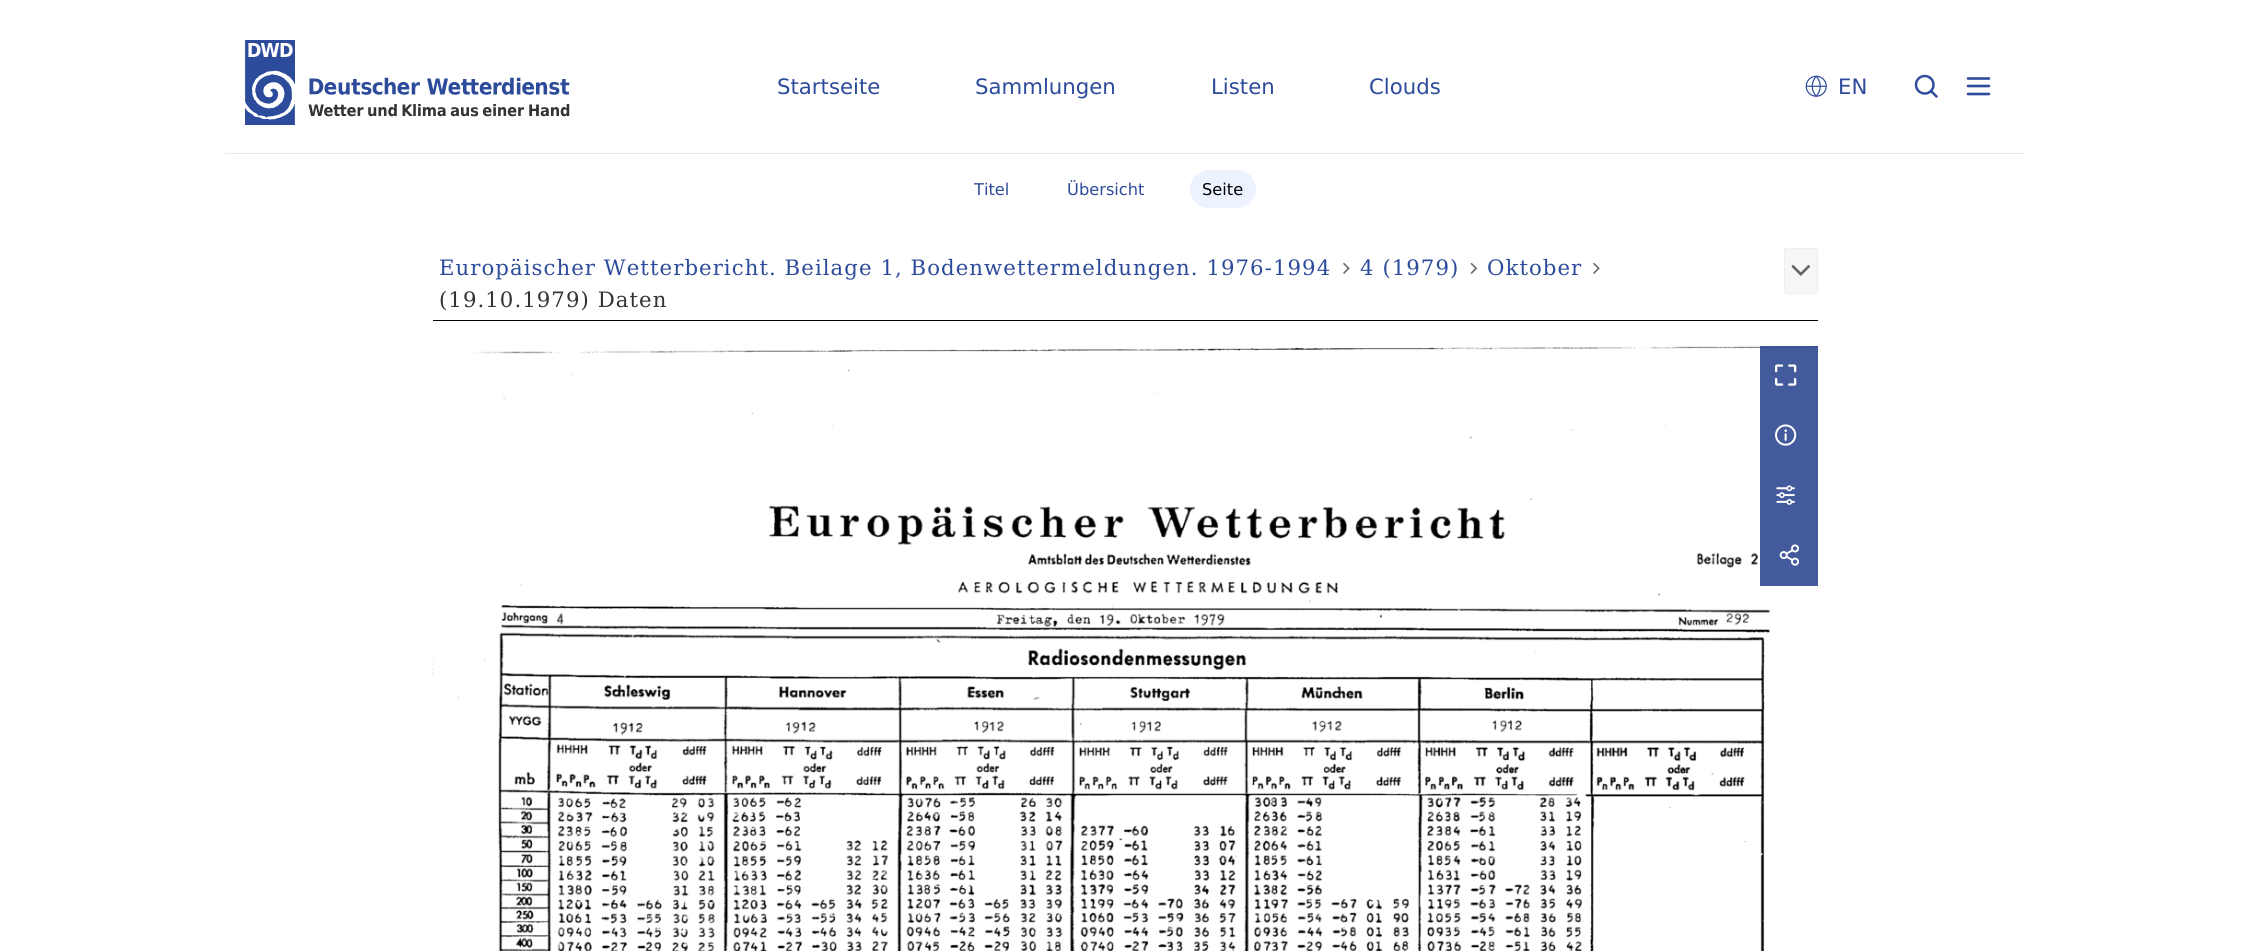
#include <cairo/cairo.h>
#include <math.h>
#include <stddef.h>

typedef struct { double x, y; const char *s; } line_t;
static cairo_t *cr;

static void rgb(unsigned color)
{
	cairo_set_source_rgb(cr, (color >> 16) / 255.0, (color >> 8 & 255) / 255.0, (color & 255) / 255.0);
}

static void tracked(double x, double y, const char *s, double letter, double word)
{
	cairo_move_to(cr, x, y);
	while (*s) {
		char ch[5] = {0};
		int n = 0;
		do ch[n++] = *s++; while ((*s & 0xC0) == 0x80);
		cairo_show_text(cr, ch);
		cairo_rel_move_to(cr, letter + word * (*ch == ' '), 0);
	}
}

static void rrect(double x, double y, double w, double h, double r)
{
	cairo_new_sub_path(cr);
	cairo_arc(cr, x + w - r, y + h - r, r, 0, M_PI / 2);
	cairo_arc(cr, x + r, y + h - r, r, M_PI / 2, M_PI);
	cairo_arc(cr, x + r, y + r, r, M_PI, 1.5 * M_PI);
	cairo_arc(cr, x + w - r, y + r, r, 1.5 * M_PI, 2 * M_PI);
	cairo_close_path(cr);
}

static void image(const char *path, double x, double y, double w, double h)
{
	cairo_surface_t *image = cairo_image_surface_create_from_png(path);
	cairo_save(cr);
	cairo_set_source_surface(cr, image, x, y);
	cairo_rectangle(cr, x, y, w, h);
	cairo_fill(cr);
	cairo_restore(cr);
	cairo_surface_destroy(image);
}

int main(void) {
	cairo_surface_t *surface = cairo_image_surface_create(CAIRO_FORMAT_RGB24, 2249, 951);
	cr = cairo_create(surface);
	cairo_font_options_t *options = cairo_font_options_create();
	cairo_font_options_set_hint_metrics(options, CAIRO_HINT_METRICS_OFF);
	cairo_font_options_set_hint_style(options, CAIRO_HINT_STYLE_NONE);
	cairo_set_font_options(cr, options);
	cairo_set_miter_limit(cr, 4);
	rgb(0xffffff);
	cairo_paint(cr);
	rgb(0xe8e8e8);
	cairo_rectangle(cr, 225, 153, 1800, 1);
	cairo_fill(cr);
	image("img/1.png", 245, 40, 325, 85);
	image("img/2.png", 1805, 75, 22, 22);
	image("img/3.png", 1914, 74, 24, 24);
	cairo_new_path(cr);
	cairo_move_to(cr, 1968, 86);
	cairo_line_to(cr, 1989, 86);
	cairo_move_to(cr, 1968, 78.5);
	cairo_line_to(cr, 1989, 78.5);
	cairo_move_to(cr, 1968, 94);
	cairo_line_to(cr, 1989, 94);
	rgb(0x2d4b9b);
	cairo_set_line_width(cr, 2.6);
	cairo_set_line_cap(cr, CAIRO_LINE_CAP_ROUND);
	cairo_set_line_join(cr, CAIRO_LINE_JOIN_ROUND);
	cairo_stroke(cr);
	rgb(0xedf2ff);
	rrect(1190, 170, 66, 38, 19);
	cairo_fill(cr);
	rgb(0x000000);
	cairo_rectangle(cr, 433, 320, 1385, 1);
	cairo_fill(cr);
	image("img/4.png", 1343, 263, 7, 11);
	image("img/5.png", 1470, 262, 8, 12);
	image("img/4.png", 1593, 263, 7, 11);
	rgb(0xf7f7f8);
	rrect(1784.5, 248.5, 33, 45, 2);
	cairo_fill_preserve(cr);
	rgb(0xeeeeee);
	cairo_set_line_width(cr, 1);
	cairo_set_line_cap(cr, CAIRO_LINE_CAP_BUTT);
	cairo_set_line_join(cr, CAIRO_LINE_JOIN_MITER);
	cairo_stroke(cr);
	image("img/6.png", 1791, 265, 19, 11);
	image("img/7.png", 432, 346, 1386, 605);
	cairo_set_source_rgba(cr, 0.137, 0.243, 0.545, 0.85);
	cairo_rectangle(cr, 1760, 346, 58, 240);
	cairo_fill(cr);
	image("img/8.png", 1775, 364, 22, 22);
	image("img/9.png", 1775, 424, 22, 22);
	image("img/10.png", 1776, 485, 19, 20);
	image("img/11.png", 1779, 544, 21, 22);
	cairo_select_font_face(cr, "DejaVu Sans", CAIRO_FONT_SLANT_NORMAL, CAIRO_FONT_WEIGHT_NORMAL);
	cairo_set_font_size(cr, 21.25);
	rgb(0x2d4b9b);
	{
		static const line_t items[] = {
			{777, 94, "Startseite"},
			{975, 94, "Sammlungen"},
			{1211, 94, "Listen"},
			{1369, 94, "Clouds"},
			{1838, 94, "EN"},
		};
		for (size_t i = 0; i < sizeof items / sizeof *items; i++) {
			cairo_move_to(cr, items[i].x, items[i].y);
			cairo_show_text(cr, items[i].s);
		}
	}
	cairo_set_font_size(cr, 16.25);
	cairo_move_to(cr, 974, 195);
	cairo_show_text(cr, "Titel");
	cairo_move_to(cr, 1067, 195);
	cairo_show_text(cr, "Übersicht");
	rgb(0x000000);
	cairo_move_to(cr, 1202, 195);
	cairo_show_text(cr, "Seite");
	cairo_select_font_face(cr, "DejaVu Serif", CAIRO_FONT_SLANT_NORMAL, CAIRO_FONT_WEIGHT_NORMAL);
	cairo_set_font_size(cr, 21.25);
	rgb(0x2d4b9b);
	{
		static const line_t items[] = {
			{439, 275, "Europäischer Wetterbericht. Beilage 1, Bodenwettermeldungen. 1976-1994"},
			{1360, 275, "4 (1979)"},
			{1487, 275, "Oktober"},
		};
		for (size_t i = 0; i < sizeof items / sizeof *items; i++) {
			tracked(items[i].x, items[i].y, items[i].s, 1.05, 0);
		}
	}
	rgb(0x333333);
	tracked(439, 307, "(19.10.1979) Daten", 1.05, 0);
	cairo_surface_write_to_png(surface, "page.png");
	cairo_font_options_destroy(options);
	cairo_destroy(cr);
	cairo_surface_destroy(surface);
	return 0;
}
